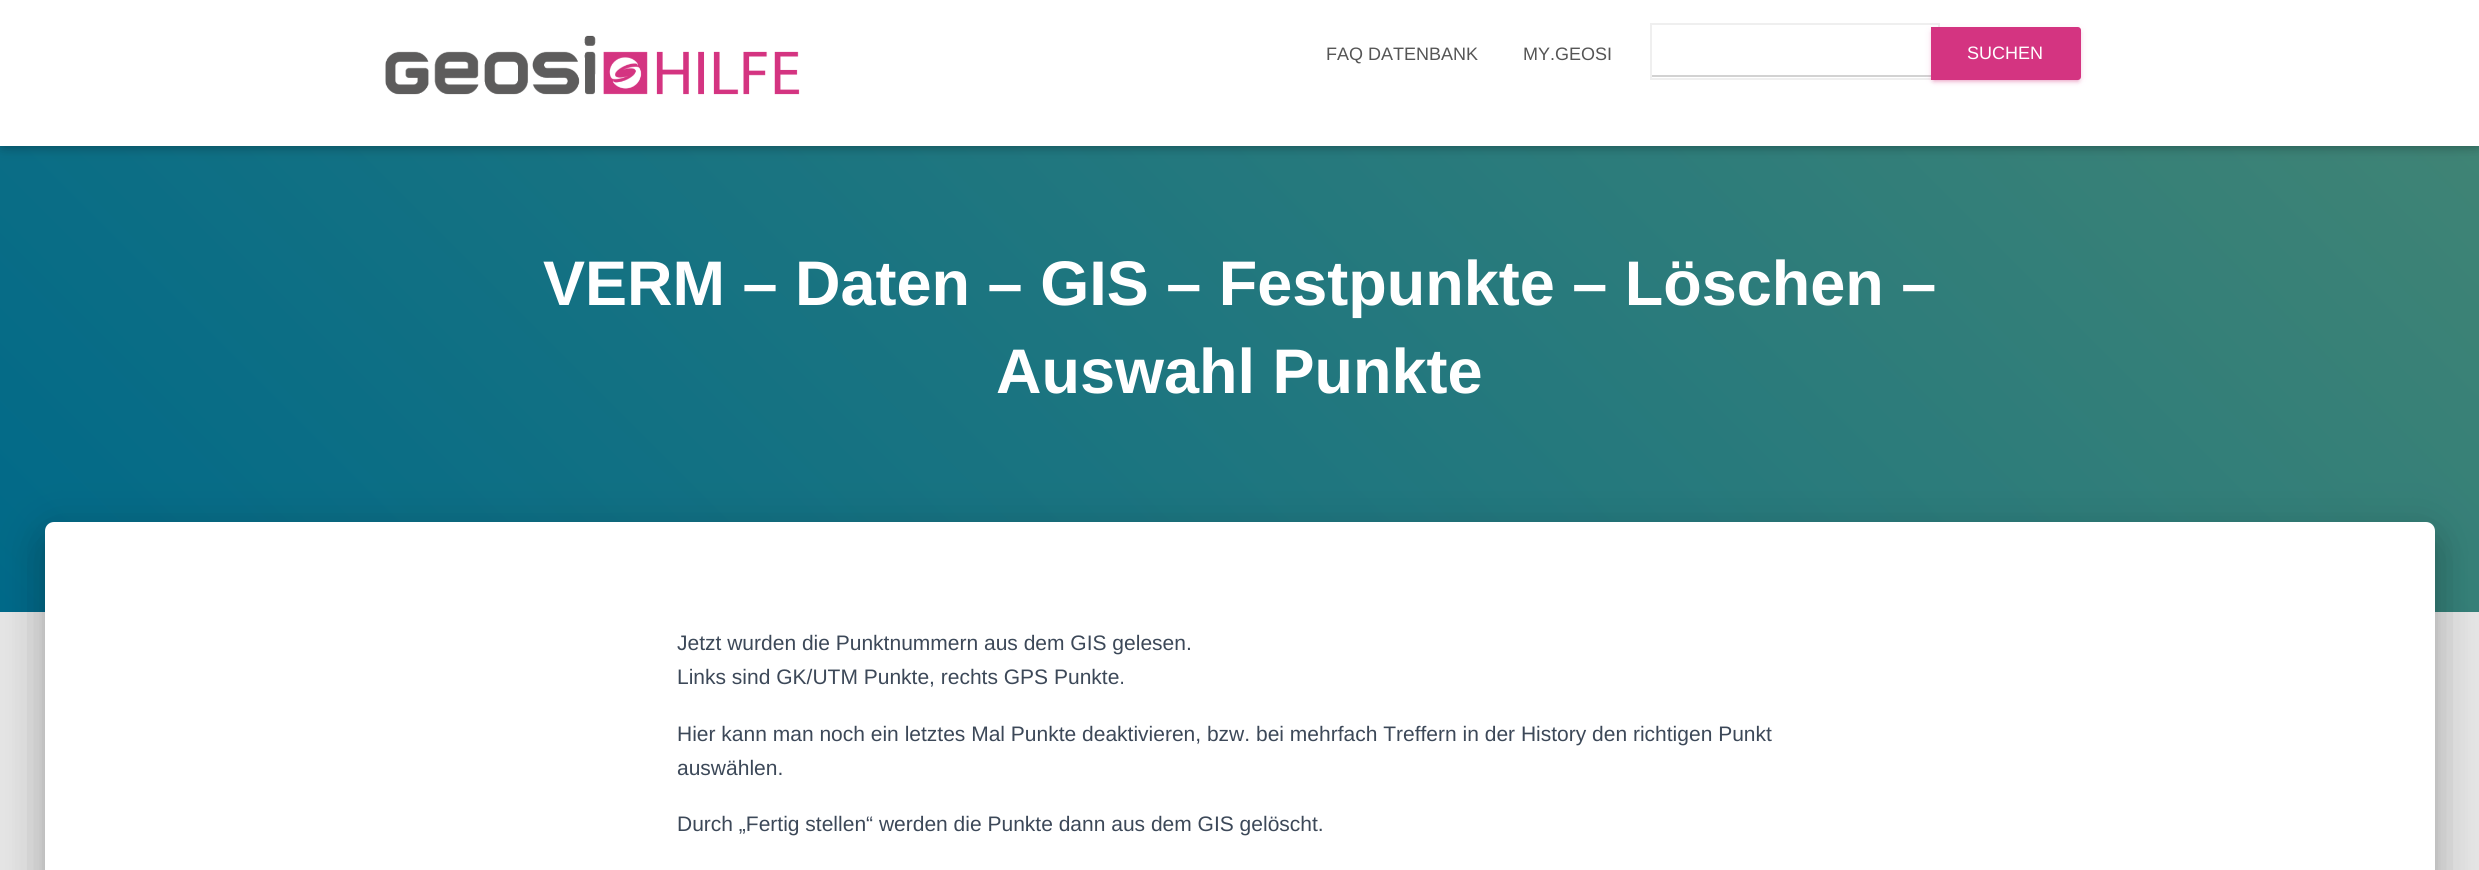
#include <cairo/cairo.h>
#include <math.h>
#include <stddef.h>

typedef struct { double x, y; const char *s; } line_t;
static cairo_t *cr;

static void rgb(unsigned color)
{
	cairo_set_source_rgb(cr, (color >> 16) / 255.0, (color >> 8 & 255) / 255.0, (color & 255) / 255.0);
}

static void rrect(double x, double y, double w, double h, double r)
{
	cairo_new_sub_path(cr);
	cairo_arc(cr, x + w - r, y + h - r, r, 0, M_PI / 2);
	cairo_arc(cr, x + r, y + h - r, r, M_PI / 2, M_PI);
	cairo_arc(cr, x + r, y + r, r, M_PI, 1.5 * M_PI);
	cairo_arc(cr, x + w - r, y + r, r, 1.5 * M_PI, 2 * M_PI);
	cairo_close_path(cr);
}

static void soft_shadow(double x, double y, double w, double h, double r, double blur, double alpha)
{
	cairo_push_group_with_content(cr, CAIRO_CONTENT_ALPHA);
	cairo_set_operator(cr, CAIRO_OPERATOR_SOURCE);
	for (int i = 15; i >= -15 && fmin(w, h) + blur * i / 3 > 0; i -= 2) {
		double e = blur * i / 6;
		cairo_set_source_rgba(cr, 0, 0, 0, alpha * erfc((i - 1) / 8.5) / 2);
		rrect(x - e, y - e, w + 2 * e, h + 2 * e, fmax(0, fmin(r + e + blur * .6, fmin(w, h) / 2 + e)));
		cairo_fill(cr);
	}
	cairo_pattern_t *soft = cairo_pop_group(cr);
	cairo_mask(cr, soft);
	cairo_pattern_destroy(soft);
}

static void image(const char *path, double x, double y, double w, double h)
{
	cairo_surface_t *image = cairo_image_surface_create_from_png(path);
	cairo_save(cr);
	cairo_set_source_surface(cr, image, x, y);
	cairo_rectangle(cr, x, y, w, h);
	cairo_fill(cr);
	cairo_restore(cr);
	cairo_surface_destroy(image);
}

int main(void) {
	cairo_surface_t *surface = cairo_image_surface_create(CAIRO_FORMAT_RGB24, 2479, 870);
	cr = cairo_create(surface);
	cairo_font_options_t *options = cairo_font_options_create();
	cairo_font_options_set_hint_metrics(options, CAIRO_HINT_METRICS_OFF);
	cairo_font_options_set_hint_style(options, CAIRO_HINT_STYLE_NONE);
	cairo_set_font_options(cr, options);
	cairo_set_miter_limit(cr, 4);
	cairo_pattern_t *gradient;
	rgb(0xe5e5e5);
	cairo_paint(cr);
	gradient = cairo_pattern_create_linear(467, 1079, 2013, -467);
	cairo_pattern_add_color_stop_rgba(gradient, 0, 0, 0.412, 0.537, 1);
	cairo_pattern_add_color_stop_rgba(gradient, 1, 0.259, 0.522, 0.455, 1);
	cairo_set_source(cr, gradient);
	cairo_pattern_destroy(gradient);
	cairo_rectangle(cr, 0, 146, 2479, 466);
	cairo_fill(cr);
	rgb(0x000000);
	soft_shadow(3, 9, 2474, 140, 0, 4, 0.1);
	soft_shadow(0, 2, 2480, 145, 0, 7.5, 0.12);
	soft_shadow(9, 11, 2462, 127, 0, 7.5, 0.42);
	rgb(0xffffff);
	cairo_rectangle(cr, 0, 0, 2479, 146);
	cairo_fill(cr);
	image("img/1.png", 385, 35, 415, 60);
	rgb(0xd2d2d2);
	cairo_rectangle(cr, 1652, 75, 286, 2);
	cairo_fill(cr);
	cairo_rectangle(cr, 1651, 24, 288, 55);
	rgb(0xefefef);
	cairo_stroke(cr);
	rgb(0xd43481);
	soft_shadow(1931, 29, 150, 52, 3, 4, 0.12);
	soft_shadow(1934, 35, 144, 46, 0, 1, 0.2);
	soft_shadow(1931, 30, 150, 53, 3, 1.5, 0.14);
	rgb(0xd43481);
	cairo_new_path(cr);
	cairo_move_to(cr, 1931, 27);
	cairo_line_to(cr, 2078, 27);
	cairo_curve_to(cr, 2079.5, 27, 2081, 28.5, 2081, 30);
	cairo_line_to(cr, 2081, 77);
	cairo_curve_to(cr, 2081, 78.5, 2079.5, 80, 2078, 80);
	cairo_line_to(cr, 1931, 80);
	cairo_close_path(cr);
	cairo_fill(cr);
	rgb(0x000000);
	soft_shadow(53, 542, 2374, 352, 1.5, 7.5, 0.2);
	soft_shadow(38, 524, 2404, 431, 17, 22.5, 0.12);
	soft_shadow(42, 543, 2396, 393, 12, 18, 0.14);
	rgb(0xffffff);
	cairo_new_path(cr);
	cairo_move_to(cr, 54, 522);
	cairo_line_to(cr, 2426, 522);
	cairo_curve_to(cr, 2431, 522, 2435, 526, 2435, 531);
	cairo_line_to(cr, 2435, 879);
	cairo_line_to(cr, 45, 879);
	cairo_line_to(cr, 45, 531);
	cairo_curve_to(cr, 45, 526, 49, 522, 54, 522);
	cairo_close_path(cr);
	cairo_fill(cr);
	cairo_select_font_face(cr, "Liberation Sans", CAIRO_FONT_SLANT_NORMAL, CAIRO_FONT_WEIGHT_NORMAL);
	cairo_set_font_size(cr, 18);
	rgb(0x555555);
	cairo_move_to(cr, 1326, 60);
	cairo_show_text(cr, "FAQ DATENBANK");
	cairo_move_to(cr, 1523, 60);
	cairo_show_text(cr, "MY.GEOSI");
	rgb(0xffffff);
	cairo_move_to(cr, 1967, 59);
	cairo_show_text(cr, "SUCHEN");
	cairo_select_font_face(cr, "Liberation Sans", CAIRO_FONT_SLANT_NORMAL, CAIRO_FONT_WEIGHT_BOLD);
	cairo_set_font_size(cr, 63);
	cairo_move_to(cr, 543, 305);
	cairo_show_text(cr, "VERM – Daten – GIS – Festpunkte – Löschen –");
	cairo_move_to(cr, 996, 393);
	cairo_show_text(cr, "Auswahl Punkte");
	cairo_select_font_face(cr, "Liberation Sans", CAIRO_FONT_SLANT_NORMAL, CAIRO_FONT_WEIGHT_NORMAL);
	cairo_set_font_size(cr, 21);
	rgb(0x3c4858);
	{
		static const line_t items[] = {
			{677, 650, "Jetzt wurden die Punktnummern aus dem GIS gelesen."},
			{677, 684, "Links sind GK/UTM Punkte, rechts GPS Punkte."},
			{677, 741, "Hier kann man noch ein letztes Mal Punkte deaktivieren, bzw. bei mehrfach Treffern in der History den richtigen Punkt"},
			{677, 775, "auswählen."},
			{677, 831, "Durch „Fertig stellen“ werden die Punkte dann aus dem GIS gelöscht."},
		};
		for (size_t i = 0; i < sizeof items / sizeof *items; i++) {
			cairo_move_to(cr, items[i].x, items[i].y);
			cairo_show_text(cr, items[i].s);
		}
	}
	cairo_surface_write_to_png(surface, "page.png");
	cairo_font_options_destroy(options);
	cairo_destroy(cr);
	cairo_surface_destroy(surface);
	return 0;
}
